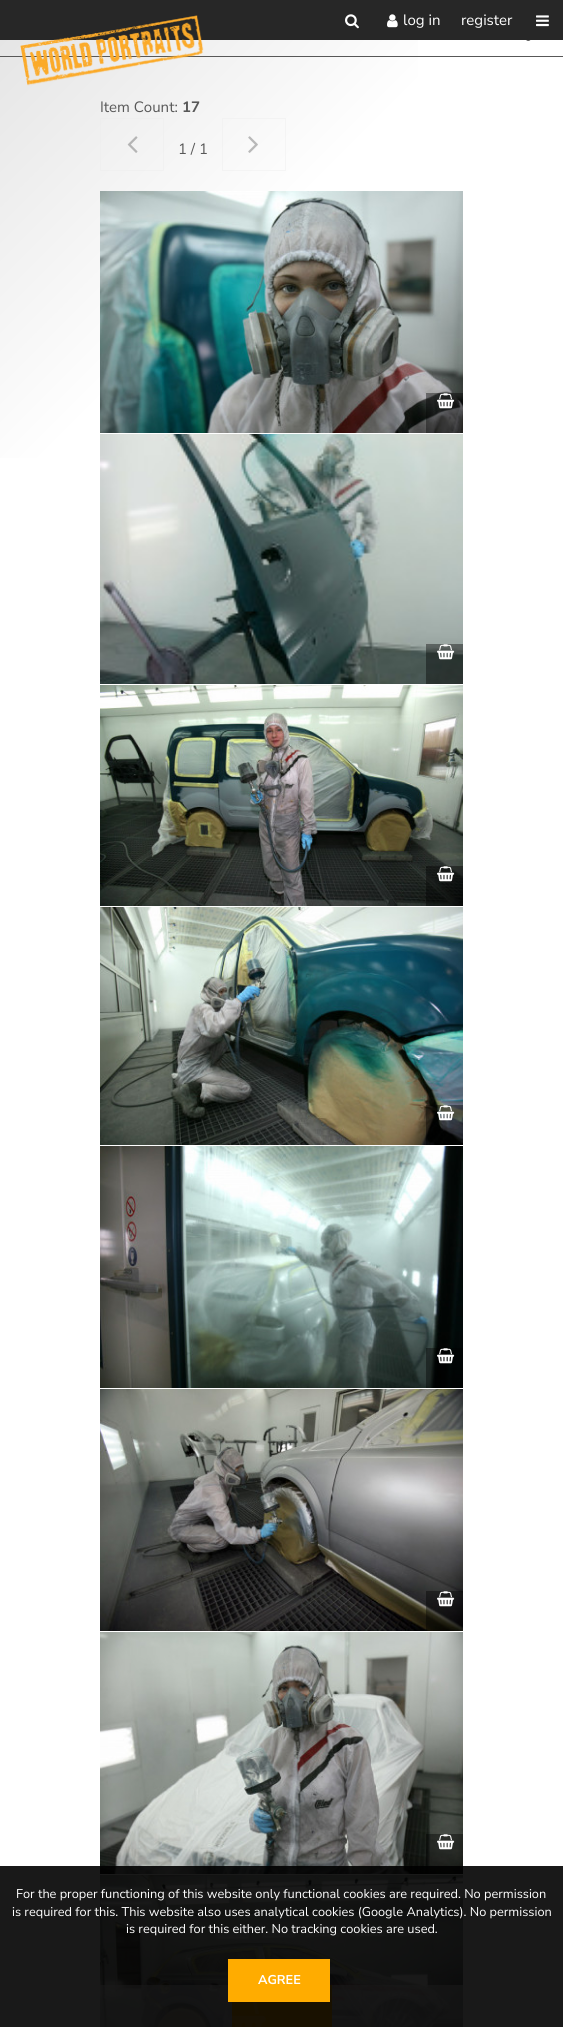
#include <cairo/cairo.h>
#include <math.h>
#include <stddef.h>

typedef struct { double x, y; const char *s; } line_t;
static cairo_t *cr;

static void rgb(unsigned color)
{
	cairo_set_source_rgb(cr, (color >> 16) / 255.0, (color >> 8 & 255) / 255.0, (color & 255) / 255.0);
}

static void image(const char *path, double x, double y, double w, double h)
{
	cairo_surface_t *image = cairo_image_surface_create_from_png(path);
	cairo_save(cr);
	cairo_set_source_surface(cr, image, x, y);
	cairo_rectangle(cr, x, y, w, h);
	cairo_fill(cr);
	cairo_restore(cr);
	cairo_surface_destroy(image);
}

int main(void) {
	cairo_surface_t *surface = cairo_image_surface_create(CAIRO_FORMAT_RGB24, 563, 2027);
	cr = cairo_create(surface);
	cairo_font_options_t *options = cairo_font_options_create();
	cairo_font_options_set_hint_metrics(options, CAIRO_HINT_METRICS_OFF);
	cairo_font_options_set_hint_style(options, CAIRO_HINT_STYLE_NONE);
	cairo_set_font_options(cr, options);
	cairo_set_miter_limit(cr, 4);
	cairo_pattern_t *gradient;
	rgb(0xffffff);
	cairo_paint(cr);
	gradient = cairo_pattern_create_linear(-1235, 1131, 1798, 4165);
	cairo_pattern_add_color_stop_rgba(gradient, 0, 0.867, 0.867, 0.867, 1);
	cairo_pattern_add_color_stop_rgba(gradient, 0.1, 1, 1, 1, 1);
	cairo_set_source(cr, gradient);
	cairo_pattern_destroy(gradient);
	cairo_rectangle(cr, 0, 40, 418, 418);
	cairo_fill(cr);
	rgb(0x272727);
	cairo_rectangle(cr, 0, 0, 563, 40);
	cairo_fill(cr);
	rgb(0x585858);
	cairo_rectangle(cr, 0, 56, 563, 1);
	cairo_fill(cr);
	image("img/1.png", 20, 15, 184, 71);
	image("img/2.png", 345, 14, 14, 15);
	image("img/3.png", 387, 14, 11, 14);
	image("img/4.png", 536, 15, 13, 12);
	image("img/23.png", 100, 1875, 363, 152);
	cairo_set_source_rgba(cr, 1, 1, 1, 0.6);
	cairo_rectangle(cr, 100, 1985, 363, 42);
	cairo_fill(cr);
	rgb(0xffac00);
	cairo_rectangle(cr, 232, 1985, 100, 42);
	cairo_fill(cr);
	image("img/5.png", 232, 2002, 34, 25);
	image("img/6.png", 526, 40, 5, 1);
	cairo_rectangle(cr, 100.5, 118.5, 63, 52);
	cairo_set_source_rgba(cr, 0.918, 0.918, 0.918, 0.4);
	cairo_set_line_width(cr, 1);
	cairo_stroke(cr);
	image("img/7.png", 127, 136, 11, 17);
	cairo_rectangle(cr, 222.5, 118.5, 63, 52);
	cairo_stroke(cr);
	image("img/8.png", 248, 136, 10, 17);
	image("img/9.png", 100, 191, 363, 242);
	cairo_set_source_rgba(cr, 0, 0, 0, 0.4);
	cairo_rectangle(cr, 426, 393, 37, 40);
	cairo_fill(cr);
	image("img/10.png", 437, 393, 18, 16);
	image("img/11.png", 100, 434, 363, 250);
	cairo_rectangle(cr, 426, 644, 37, 40);
	cairo_fill(cr);
	image("img/12.png", 437, 644, 18, 16);
	image("img/13.png", 100, 685, 363, 221);
	cairo_rectangle(cr, 426, 866, 37, 40);
	cairo_fill(cr);
	image("img/14.png", 437, 866, 18, 16);
	image("img/15.png", 100, 907, 363, 238);
	cairo_rectangle(cr, 426, 1105, 37, 40);
	cairo_fill(cr);
	image("img/16.png", 437, 1105, 18, 16);
	image("img/17.png", 100, 1146, 363, 242);
	cairo_rectangle(cr, 426, 1348, 37, 40);
	cairo_fill(cr);
	image("img/18.png", 437, 1348, 18, 16);
	image("img/19.png", 100, 1389, 363, 242);
	cairo_rectangle(cr, 426, 1591, 37, 40);
	cairo_fill(cr);
	image("img/20.png", 437, 1591, 18, 16);
	image("img/21.png", 100, 1632, 363, 242);
	cairo_rectangle(cr, 426, 1834, 37, 40);
	cairo_fill(cr);
	image("img/22.png", 437, 1834, 18, 16);
	cairo_set_source_rgba(cr, 0, 0, 0, 0.9);
	cairo_rectangle(cr, 0, 1866, 563, 161);
	cairo_fill(cr);
	rgb(0xffac00);
	cairo_rectangle(cr, 228, 1959, 102, 43);
	cairo_fill(cr);
	cairo_select_font_face(cr, "Nunito Sans", CAIRO_FONT_SLANT_NORMAL, CAIRO_FONT_WEIGHT_NORMAL);
	cairo_set_font_size(cr, 15);
	rgb(0xffffff);
	cairo_move_to(cr, 403, 25);
	cairo_show_text(cr, "log in");
	cairo_move_to(cr, 461, 25);
	cairo_show_text(cr, "register");
	rgb(0x585858);
	cairo_move_to(cr, 100, 112);
	cairo_show_text(cr, "Item Count:");
	cairo_select_font_face(cr, "Nunito Sans", CAIRO_FONT_SLANT_NORMAL, CAIRO_FONT_WEIGHT_BOLD);
	cairo_move_to(cr, 182, 112);
	cairo_show_text(cr, "17");
	cairo_select_font_face(cr, "Nunito Sans", CAIRO_FONT_SLANT_NORMAL, CAIRO_FONT_WEIGHT_NORMAL);
	cairo_move_to(cr, 178, 154);
	cairo_show_text(cr, "1 / 1");
	cairo_set_font_size(cr, 12.75);
	rgb(0xffffff);
	{
		static const line_t items[] = {
			{16, 1898, "For the proper functioning of this website only functional cookies are required. No permission"},
			{12, 1916, "is required for this. This website also uses analytical cookies (Google Analytics). No permission"},
			{126, 1933, "is required for this either. No tracking cookies are used."},
		};
		for (size_t i = 0; i < sizeof items / sizeof *items; i++) {
			cairo_move_to(cr, items[i].x, items[i].y);
			cairo_show_text(cr, items[i].s);
		}
	}
	cairo_select_font_face(cr, "Nunito Sans", CAIRO_FONT_SLANT_NORMAL, CAIRO_FONT_WEIGHT_BOLD);
	cairo_move_to(cr, 258, 1984);
	cairo_show_text(cr, "AGREE");
	cairo_surface_write_to_png(surface, "page.png");
	cairo_font_options_destroy(options);
	cairo_destroy(cr);
	cairo_surface_destroy(surface);
	return 0;
}
